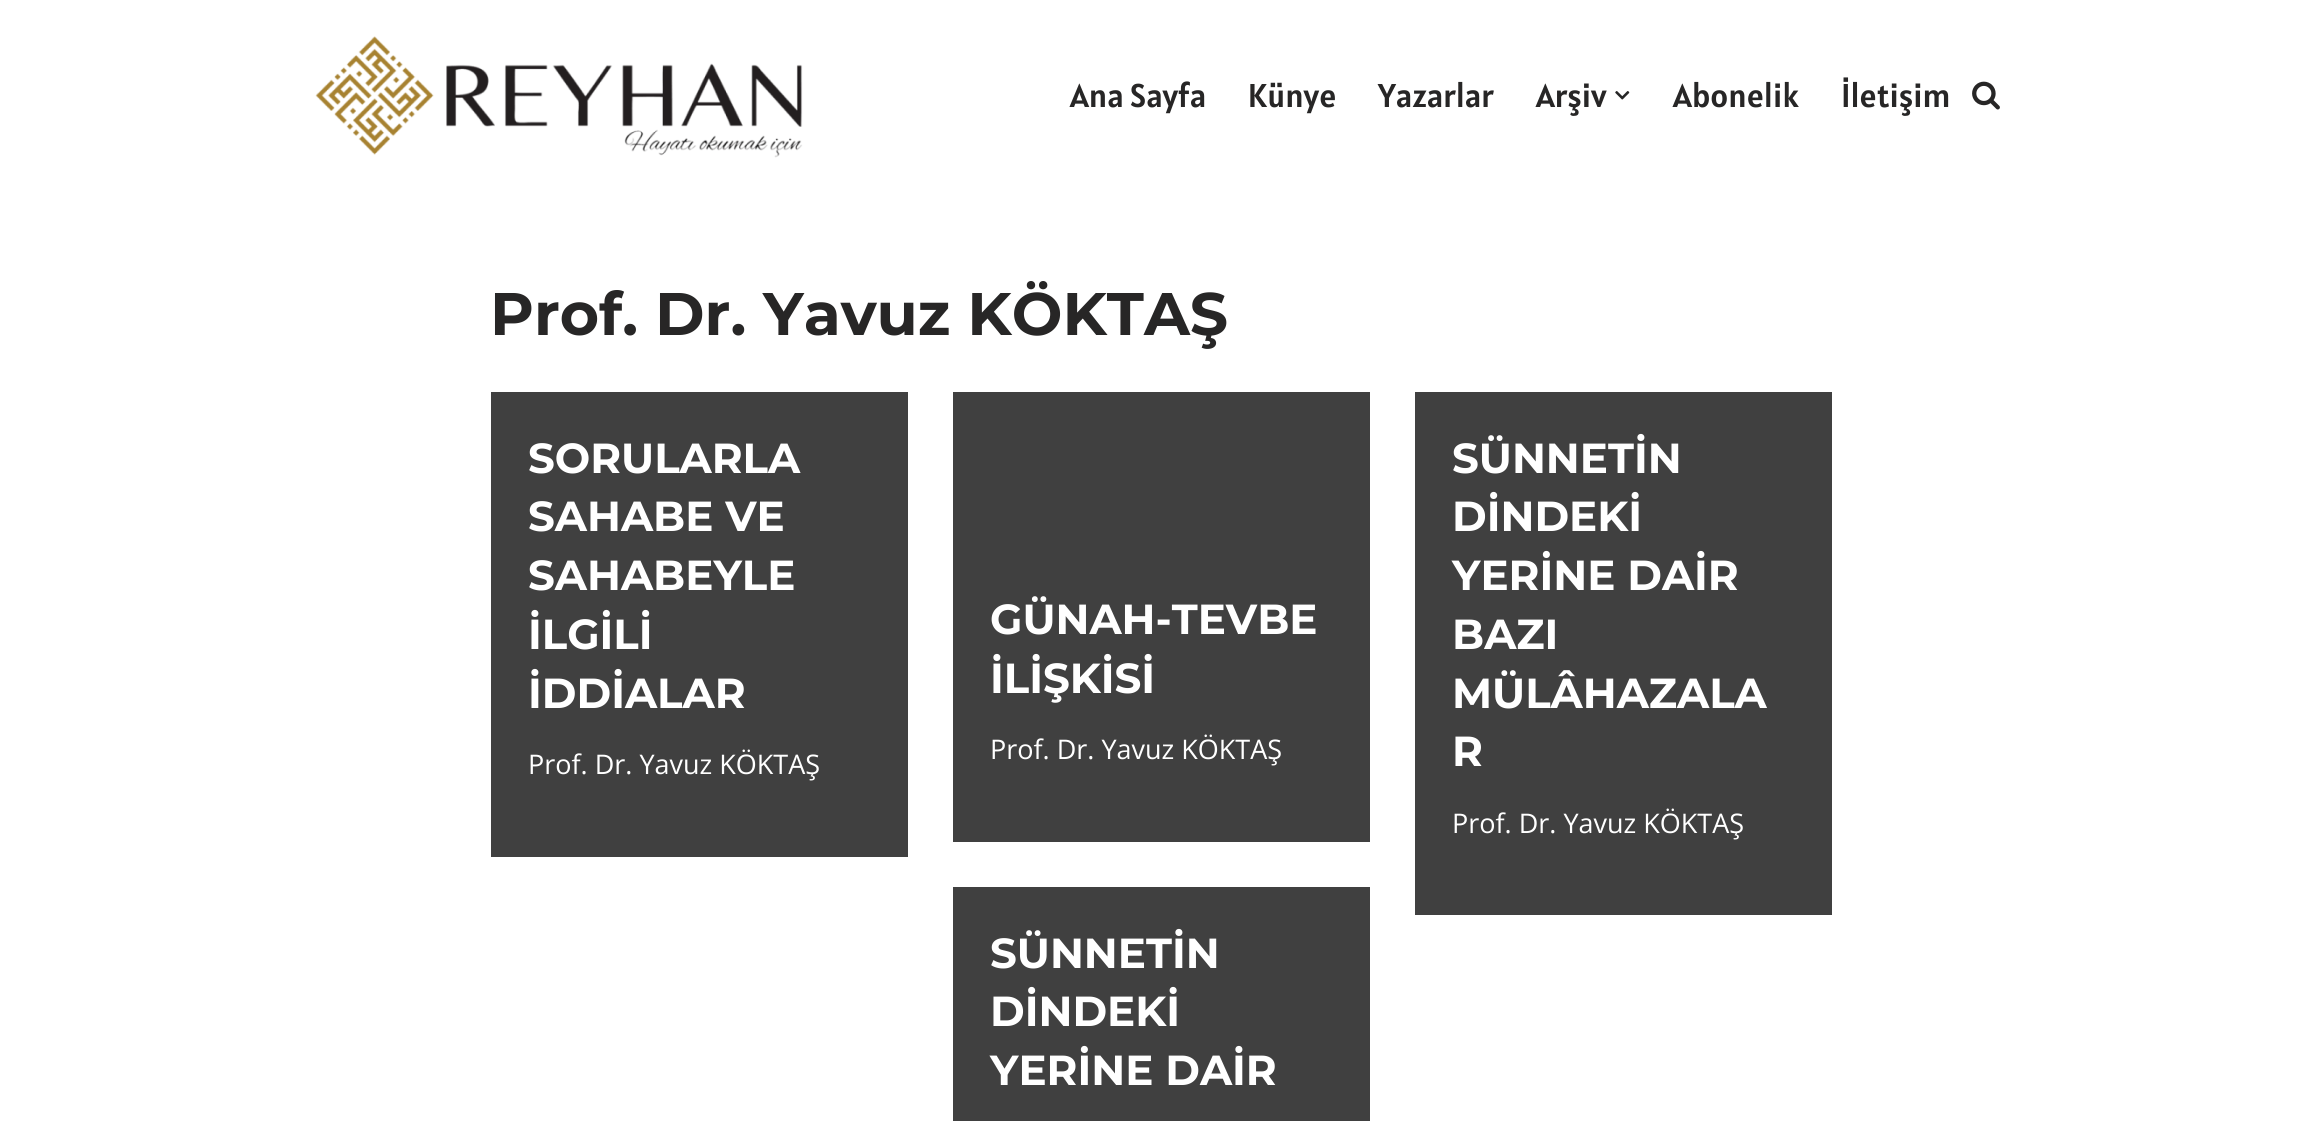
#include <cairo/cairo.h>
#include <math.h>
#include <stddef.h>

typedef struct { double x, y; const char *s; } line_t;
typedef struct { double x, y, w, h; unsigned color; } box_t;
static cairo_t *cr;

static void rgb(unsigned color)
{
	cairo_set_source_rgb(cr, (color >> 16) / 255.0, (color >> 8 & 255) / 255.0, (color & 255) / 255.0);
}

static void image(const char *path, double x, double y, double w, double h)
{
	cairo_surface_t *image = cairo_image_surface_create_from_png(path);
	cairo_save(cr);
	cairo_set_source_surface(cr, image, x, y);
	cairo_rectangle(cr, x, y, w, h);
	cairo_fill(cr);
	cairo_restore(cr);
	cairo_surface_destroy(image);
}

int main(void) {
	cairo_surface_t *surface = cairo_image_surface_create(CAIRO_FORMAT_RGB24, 2321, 1121);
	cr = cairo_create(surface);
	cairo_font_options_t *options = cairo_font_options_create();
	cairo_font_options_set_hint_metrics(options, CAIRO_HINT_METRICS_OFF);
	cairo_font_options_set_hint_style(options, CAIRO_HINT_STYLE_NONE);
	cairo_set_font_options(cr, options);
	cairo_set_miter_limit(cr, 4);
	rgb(0xffffff);
	cairo_paint(cr);
	image("img/1.png", 315, 36, 488, 122);
	image("img/2.png", 1615, 91, 15, 9);
	image("img/3.png", 1972, 81, 28, 29);
	{
		static const box_t items[] = {
			{491, 392, 417, 465, 0x404040},
			{953, 392, 417, 450, 0x404040},
			{1415, 392, 417, 523, 0x404040},
			{953, 887, 417, 234, 0x404040},
		};
		for (size_t i = 0; i < sizeof items / sizeof *items; i++) {
			rgb(items[i].color);
			cairo_rectangle(cr, items[i].x, items[i].y, items[i].w, items[i].h);
			cairo_fill(cr);
		}
	}
	cairo_select_font_face(cr, "Alatsi", CAIRO_FONT_SLANT_NORMAL, CAIRO_FONT_WEIGHT_NORMAL);
	cairo_set_font_size(cr, 33);
	rgb(0x272626);
	{
		static const line_t items[] = {
			{1070, 107, "Ana Sayfa"},
			{1248, 107, "Künye"},
			{1378, 107, "Yazarlar"},
			{1536, 107, "Arşiv"},
			{1673, 107, "Abonelik"},
			{1841, 107, "İletişim"},
		};
		for (size_t i = 0; i < sizeof items / sizeof *items; i++) {
			cairo_move_to(cr, items[i].x, items[i].y);
			cairo_show_text(cr, items[i].s);
		}
	}
	cairo_select_font_face(cr, "Montserrat", CAIRO_FONT_SLANT_NORMAL, CAIRO_FONT_WEIGHT_BOLD);
	cairo_set_font_size(cr, 60);
	cairo_move_to(cr, 490, 335);
	cairo_show_text(cr, "Prof. Dr. Yavuz KÖKTAŞ");
	cairo_set_font_size(cr, 42);
	rgb(0xffffff);
	{
		static const line_t items[] = {
			{528, 473, "SORULARLA"},
			{528, 531, "SAHABE VE"},
			{528, 590, "SAHABEYLE"},
			{528, 649, "İLGİLİ"},
			{528, 708, "İDDİALAR"},
		};
		for (size_t i = 0; i < sizeof items / sizeof *items; i++) {
			cairo_move_to(cr, items[i].x, items[i].y);
			cairo_show_text(cr, items[i].s);
		}
	}
	cairo_select_font_face(cr, "Open Sans", CAIRO_FONT_SLANT_NORMAL, CAIRO_FONT_WEIGHT_NORMAL);
	cairo_set_font_size(cr, 27);
	cairo_move_to(cr, 528, 774);
	cairo_show_text(cr, "Prof. Dr. Yavuz KÖKTAŞ");
	cairo_select_font_face(cr, "Montserrat", CAIRO_FONT_SLANT_NORMAL, CAIRO_FONT_WEIGHT_BOLD);
	cairo_set_font_size(cr, 42);
	cairo_move_to(cr, 990, 634);
	cairo_show_text(cr, "GÜNAH-TEVBE");
	cairo_move_to(cr, 990, 693);
	cairo_show_text(cr, "İLİŞKİSİ");
	cairo_select_font_face(cr, "Open Sans", CAIRO_FONT_SLANT_NORMAL, CAIRO_FONT_WEIGHT_NORMAL);
	cairo_set_font_size(cr, 27);
	cairo_move_to(cr, 990, 759);
	cairo_show_text(cr, "Prof. Dr. Yavuz KÖKTAŞ");
	cairo_select_font_face(cr, "Montserrat", CAIRO_FONT_SLANT_NORMAL, CAIRO_FONT_WEIGHT_BOLD);
	cairo_set_font_size(cr, 42);
	{
		static const line_t items[] = {
			{1452, 473, "SÜNNETİN"},
			{1452, 531, "DİNDEKİ"},
			{1452, 590, "YERİNE DAİR"},
			{1452, 649, "BAZI"},
			{1452, 708, "MÜLÂHAZALA"},
			{1452, 766, "R"},
		};
		for (size_t i = 0; i < sizeof items / sizeof *items; i++) {
			cairo_move_to(cr, items[i].x, items[i].y);
			cairo_show_text(cr, items[i].s);
		}
	}
	cairo_select_font_face(cr, "Open Sans", CAIRO_FONT_SLANT_NORMAL, CAIRO_FONT_WEIGHT_NORMAL);
	cairo_set_font_size(cr, 27);
	cairo_move_to(cr, 1452, 833);
	cairo_show_text(cr, "Prof. Dr. Yavuz KÖKTAŞ");
	cairo_select_font_face(cr, "Montserrat", CAIRO_FONT_SLANT_NORMAL, CAIRO_FONT_WEIGHT_BOLD);
	cairo_set_font_size(cr, 42);
	{
		static const line_t items[] = {
			{990, 968, "SÜNNETİN"},
			{990, 1026, "DİNDEKİ"},
			{990, 1085, "YERİNE DAİR"},
		};
		for (size_t i = 0; i < sizeof items / sizeof *items; i++) {
			cairo_move_to(cr, items[i].x, items[i].y);
			cairo_show_text(cr, items[i].s);
		}
	}
	cairo_surface_write_to_png(surface, "page.png");
	cairo_font_options_destroy(options);
	cairo_destroy(cr);
	cairo_surface_destroy(surface);
	return 0;
}
